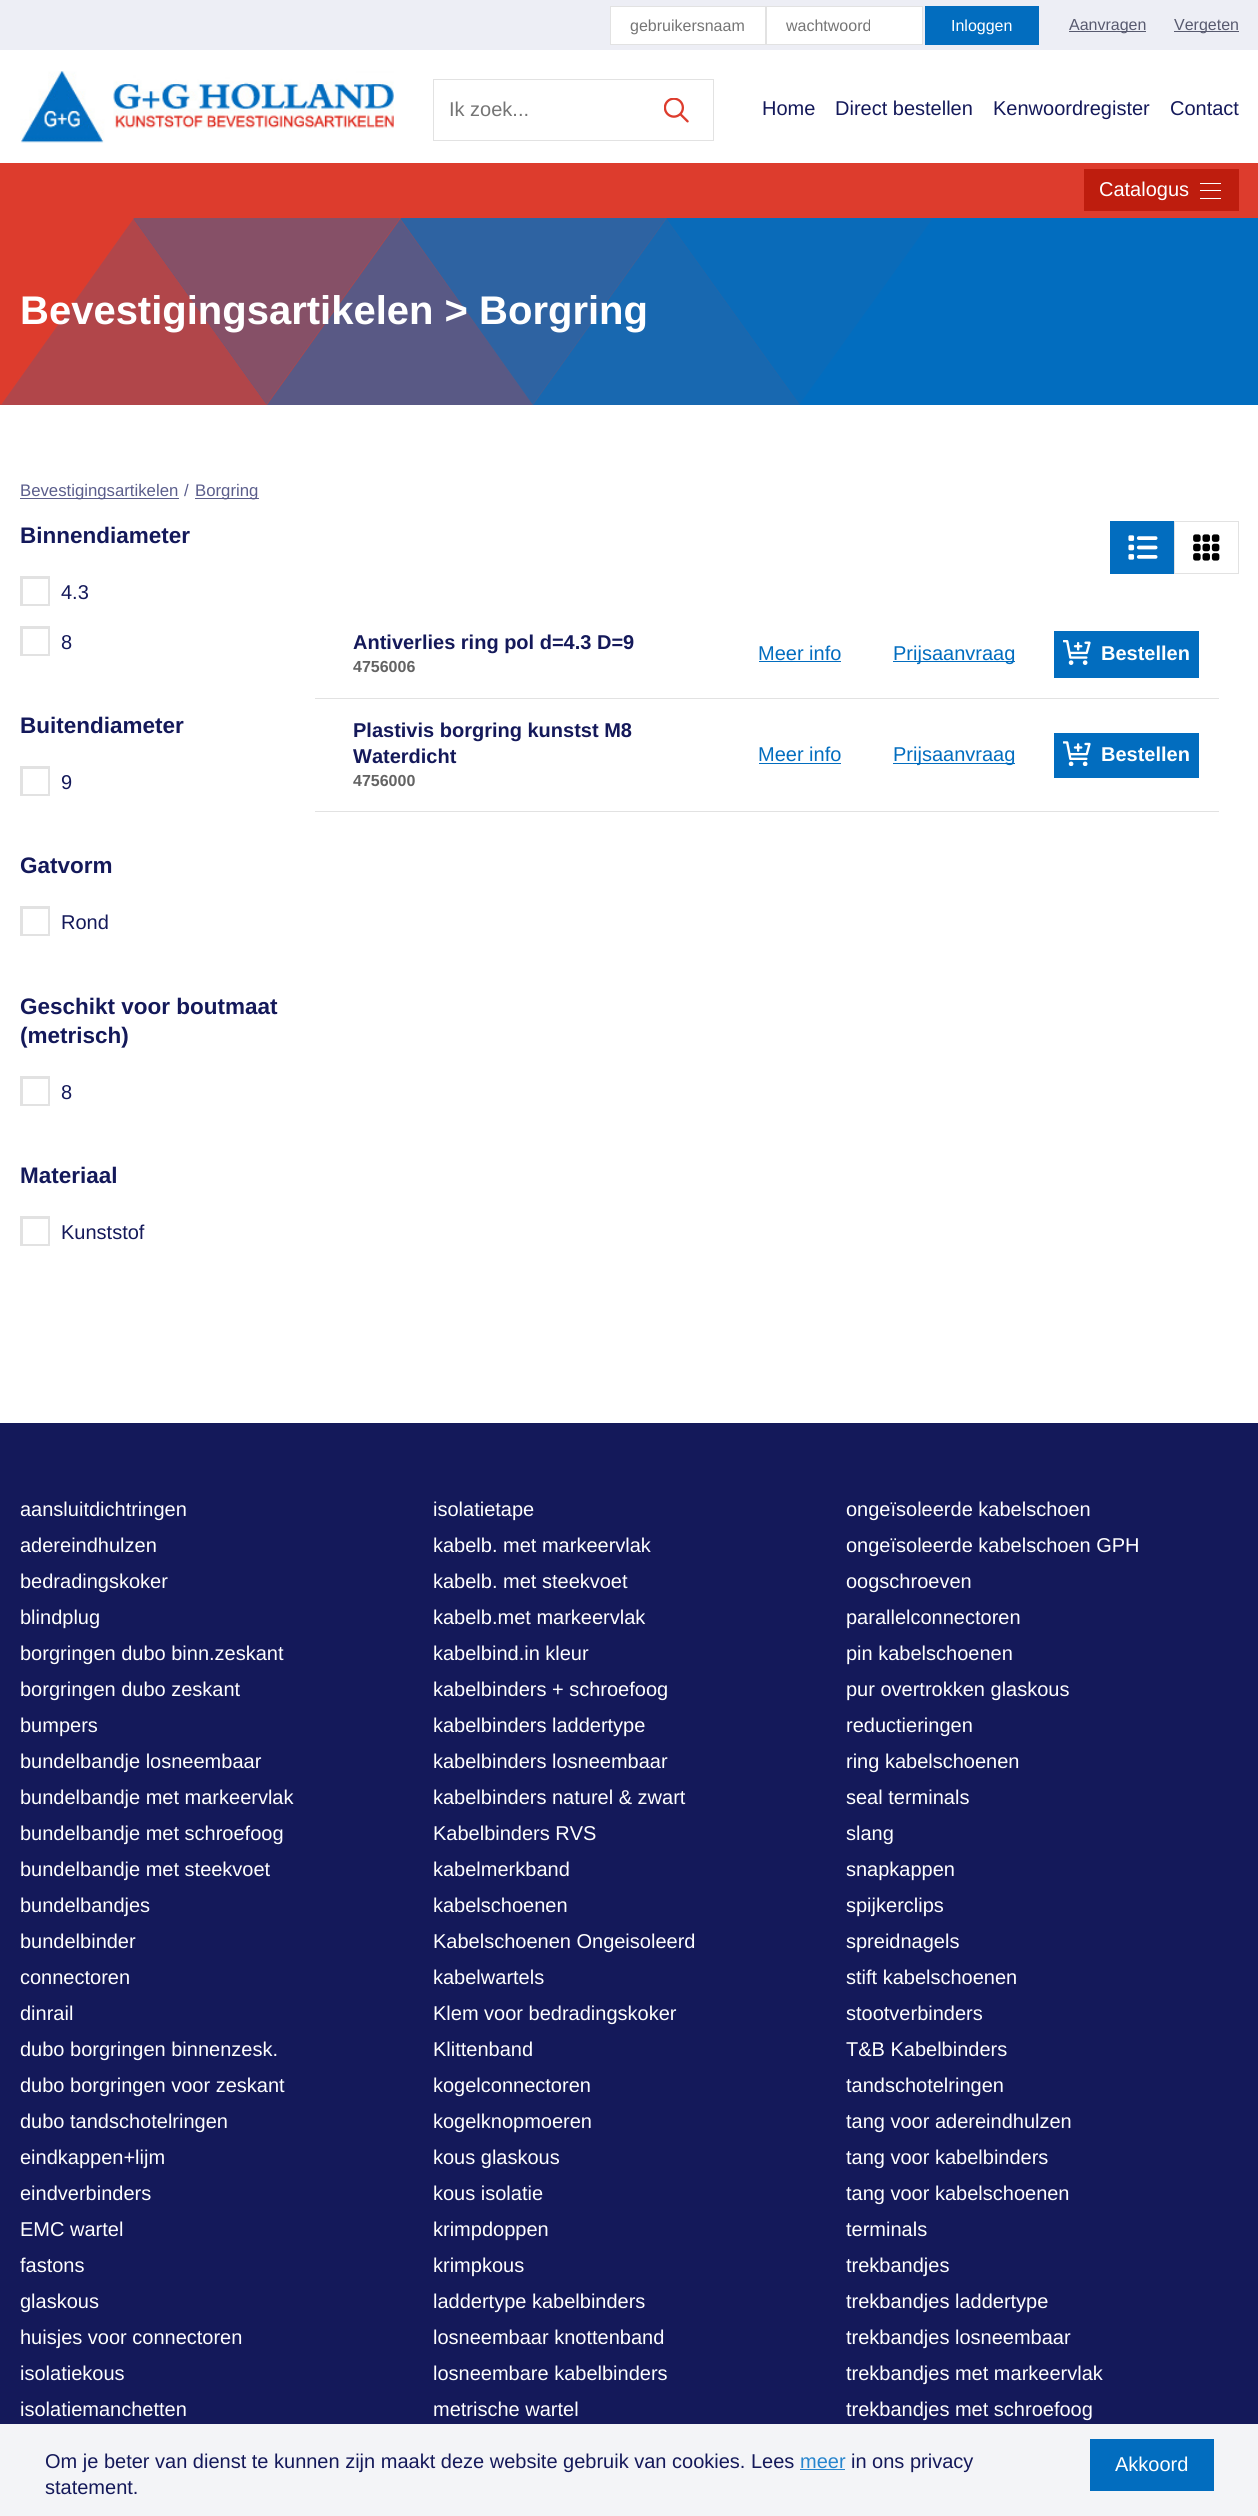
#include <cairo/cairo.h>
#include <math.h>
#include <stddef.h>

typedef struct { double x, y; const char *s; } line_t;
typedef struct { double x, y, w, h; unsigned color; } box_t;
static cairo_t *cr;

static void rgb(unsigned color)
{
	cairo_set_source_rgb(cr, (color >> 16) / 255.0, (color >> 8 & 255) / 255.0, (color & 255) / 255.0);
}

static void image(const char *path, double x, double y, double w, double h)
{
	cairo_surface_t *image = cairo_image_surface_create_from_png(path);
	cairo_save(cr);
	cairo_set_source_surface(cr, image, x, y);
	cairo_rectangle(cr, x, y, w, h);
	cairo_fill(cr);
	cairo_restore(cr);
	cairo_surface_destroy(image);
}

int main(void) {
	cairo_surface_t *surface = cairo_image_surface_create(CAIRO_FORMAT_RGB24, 1258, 2516);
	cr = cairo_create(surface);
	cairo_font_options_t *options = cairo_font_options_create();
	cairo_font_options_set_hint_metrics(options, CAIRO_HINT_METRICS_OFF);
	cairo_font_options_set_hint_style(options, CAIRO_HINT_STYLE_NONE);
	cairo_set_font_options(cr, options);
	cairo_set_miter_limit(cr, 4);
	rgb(0xffffff);
	cairo_paint(cr);
	rgb(0xedeef5);
	cairo_rectangle(cr, 0, 0, 1258, 50);
	cairo_fill(cr);
	rgb(0xffffff);
	cairo_rectangle(cr, 610.5, 6.5, 155, 38);
	cairo_fill_preserve(cr);
	rgb(0xe2e2e2);
	cairo_set_line_width(cr, 1);
	cairo_stroke(cr);
	rgb(0xffffff);
	cairo_rectangle(cr, 766.5, 6.5, 156, 38);
	cairo_fill_preserve(cr);
	rgb(0xe2e2e2);
	cairo_stroke(cr);
	{
		static const box_t items[] = {
			{925, 6, 114, 39, 0x026dbf},
			{1069, 31, 77, 1, 0x585a6f},
			{1174, 31, 65, 1, 0x585a6f},
		};
		for (size_t i = 0; i < sizeof items / sizeof *items; i++) {
			rgb(items[i].color);
			cairo_rectangle(cr, items[i].x, items[i].y, items[i].w, items[i].h);
			cairo_fill(cr);
		}
	}
	image("img/1.png", 20, 71, 374, 72);
	cairo_rectangle(cr, 433.5, 79.5, 280, 61);
	rgb(0xe2e2e2);
	cairo_stroke(cr);
	image("img/2.png", 664, 98, 25, 25);
	{
		static const box_t items[] = {
			{0, 163, 1258, 55, 0xdd3c2d},
			{1084, 169, 155, 42, 0xbe1d0e},
			{1200, 183, 21, 1, 0xffffff},
			{1200, 190, 21, 1, 0xffffff},
			{1200, 198, 21, 1, 0xffffff},
			{0, 218, 1258, 187, 0x026dbf},
		};
		for (size_t i = 0; i < sizeof items / sizeof *items; i++) {
			rgb(items[i].color);
			cairo_rectangle(cr, items[i].x, items[i].y, items[i].w, items[i].h);
			cairo_fill(cr);
		}
	}
	rgb(0x2e63a2);
	cairo_new_path(cr);
	cairo_move_to(cr, 533, 405);
	cairo_line_to(cr, 399, 218);
	cairo_line_to(cr, 667, 218);
	cairo_close_path(cr);
	cairo_fill(cr);
	cairo_set_source_rgba(cr, 0.867, 0.235, 0.176, 0.6);
	cairo_new_path(cr);
	cairo_move_to(cr, 267, 405);
	cairo_line_to(cr, 133, 218);
	cairo_line_to(cr, 401, 218);
	cairo_close_path(cr);
	cairo_fill(cr);
	rgb(0xdd3c2d);
	cairo_new_path(cr);
	cairo_move_to(cr, 1, 405);
	cairo_line_to(cr, -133, 218);
	cairo_line_to(cr, 134, 218);
	cairo_close_path(cr);
	cairo_fill(cr);
	cairo_set_source_rgba(cr, 0.867, 0.235, 0.176, 0.04);
	cairo_new_path(cr);
	cairo_move_to(cr, 799, 405);
	cairo_line_to(cr, 665, 218);
	cairo_line_to(cr, 933, 218);
	cairo_close_path(cr);
	cairo_fill(cr);
	cairo_set_source_rgba(cr, 0.867, 0.235, 0.176, 0.1);
	cairo_new_path(cr);
	cairo_move_to(cr, 666, 218);
	cairo_line_to(cr, 800, 405);
	cairo_line_to(cr, 532, 405);
	cairo_close_path(cr);
	cairo_fill(cr);
	cairo_set_source_rgba(cr, 0.867, 0.235, 0.176, 0.4);
	cairo_new_path(cr);
	cairo_move_to(cr, 400, 218);
	cairo_line_to(cr, 533, 405);
	cairo_line_to(cr, 266, 405);
	cairo_close_path(cr);
	cairo_fill(cr);
	cairo_set_source_rgba(cr, 0.867, 0.235, 0.176, 0.8);
	cairo_new_path(cr);
	cairo_move_to(cr, 133, 218);
	cairo_line_to(cr, 267, 405);
	cairo_line_to(cr, -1, 405);
	cairo_close_path(cr);
	cairo_fill(cr);
	rgb(0x5b5e8c);
	cairo_rectangle(cr, 20, 498, 159, 1);
	cairo_fill(cr);
	cairo_rectangle(cr, 195, 498, 64, 1);
	cairo_fill(cr);
	cairo_rectangle(cr, 21.5, 577.5, 27, 27);
	rgb(0xe2e2e2);
	cairo_set_line_width(cr, 3);
	cairo_stroke(cr);
	cairo_rectangle(cr, 24.5, 580.5, 22, 22);
	rgb(0xffffff);
	cairo_stroke(cr);
	cairo_rectangle(cr, 21.5, 627.5, 27, 27);
	rgb(0xe2e2e2);
	cairo_stroke(cr);
	cairo_rectangle(cr, 24.5, 630.5, 22, 22);
	rgb(0xffffff);
	cairo_stroke(cr);
	cairo_rectangle(cr, 21.5, 767.5, 27, 27);
	rgb(0xe2e2e2);
	cairo_stroke(cr);
	cairo_rectangle(cr, 24.5, 770.5, 22, 22);
	rgb(0xffffff);
	cairo_stroke(cr);
	cairo_rectangle(cr, 21.5, 907.5, 27, 27);
	rgb(0xe2e2e2);
	cairo_stroke(cr);
	cairo_rectangle(cr, 24.5, 910.5, 22, 22);
	rgb(0xffffff);
	cairo_stroke(cr);
	cairo_rectangle(cr, 21.5, 1077.5, 27, 27);
	rgb(0xe2e2e2);
	cairo_stroke(cr);
	cairo_rectangle(cr, 24.5, 1080.5, 22, 22);
	rgb(0xffffff);
	cairo_stroke(cr);
	cairo_rectangle(cr, 21.5, 1217.5, 27, 27);
	rgb(0xe2e2e2);
	cairo_stroke(cr);
	cairo_rectangle(cr, 24.5, 1220.5, 22, 22);
	rgb(0xffffff);
	cairo_stroke(cr);
	rgb(0x026dbf);
	cairo_rectangle(cr, 1110, 521, 64, 53);
	cairo_fill(cr);
	image("img/3.png", 1128, 535, 30, 25);
	cairo_rectangle(cr, 1174.5, 521.5, 64, 52);
	rgb(0xe2e2e2);
	cairo_set_line_width(cr, 1);
	cairo_stroke(cr);
	image("img/4.png", 1193, 534, 27, 27);
	{
		static const box_t items[] = {
			{315, 698, 904, 1, 0xe2e2e2},
			{759, 661, 82, 1, 0x026dbf},
			{893, 661, 122, 1, 0x026dbf},
			{1054, 631, 145, 47, 0x026dbf},
		};
		for (size_t i = 0; i < sizeof items / sizeof *items; i++) {
			rgb(items[i].color);
			cairo_rectangle(cr, items[i].x, items[i].y, items[i].w, items[i].h);
			cairo_fill(cr);
		}
	}
	image("img/5.png", 1063, 640, 28, 25);
	{
		static const box_t items[] = {
			{315, 811, 904, 1, 0xe2e2e2},
			{759, 763, 82, 1, 0x026dbf},
			{893, 763, 122, 1, 0x026dbf},
			{1054, 733, 145, 45, 0x026dbf},
		};
		for (size_t i = 0; i < sizeof items / sizeof *items; i++) {
			rgb(items[i].color);
			cairo_rectangle(cr, items[i].x, items[i].y, items[i].w, items[i].h);
			cairo_fill(cr);
		}
	}
	image("img/6.png", 1063, 741, 28, 25);
	{
		static const box_t items[] = {
			{0, 1423, 1258, 1001, 0x14195a},
			{0, 2424, 1258, 92, 0xf3f4f7},
			{800, 2469, 45, 1, 0x2785ce},
			{1090, 2439, 124, 52, 0x026dbf},
		};
		for (size_t i = 0; i < sizeof items / sizeof *items; i++) {
			rgb(items[i].color);
			cairo_rectangle(cr, items[i].x, items[i].y, items[i].w, items[i].h);
			cairo_fill(cr);
		}
	}
	cairo_select_font_face(cr, "Liberation Sans", CAIRO_FONT_SLANT_NORMAL, CAIRO_FONT_WEIGHT_NORMAL);
	cairo_set_font_size(cr, 16);
	rgb(0x757575);
	cairo_move_to(cr, 630, 31);
	cairo_show_text(cr, "gebruikersnaam");
	cairo_move_to(cr, 786, 31);
	cairo_show_text(cr, "wachtwoord");
	rgb(0xffffff);
	cairo_move_to(cr, 951, 31);
	cairo_show_text(cr, "Inloggen");
	rgb(0x585a6f);
	cairo_move_to(cr, 1069, 30);
	cairo_show_text(cr, "Aanvragen");
	cairo_move_to(cr, 1174, 30);
	cairo_show_text(cr, "Vergeten");
	cairo_set_font_size(cr, 20);
	rgb(0x757575);
	cairo_move_to(cr, 449, 116);
	cairo_show_text(cr, "Ik zoek...");
	rgb(0x14195a);
	{
		static const line_t items[] = {
			{762, 115, "Home"},
			{835, 115, "Direct bestellen"},
			{993, 115, "Kenwoordregister"},
			{1170, 115, "Contact"},
		};
		for (size_t i = 0; i < sizeof items / sizeof *items; i++) {
			cairo_move_to(cr, items[i].x, items[i].y);
			cairo_show_text(cr, items[i].s);
		}
	}
	rgb(0xffffff);
	cairo_move_to(cr, 1099, 196);
	cairo_show_text(cr, "Catalogus");
	cairo_select_font_face(cr, "Liberation Sans", CAIRO_FONT_SLANT_NORMAL, CAIRO_FONT_WEIGHT_BOLD);
	cairo_set_font_size(cr, 40);
	cairo_move_to(cr, 20, 324);
	cairo_show_text(cr, "Bevestigingsartikelen > Borgring");
	cairo_select_font_face(cr, "Liberation Sans", CAIRO_FONT_SLANT_NORMAL, CAIRO_FONT_WEIGHT_NORMAL);
	cairo_set_font_size(cr, 16.75);
	rgb(0x5b5e8c);
	{
		static const line_t items[] = {
			{20, 496, "Bevestigingsartikelen"},
			{184, 496, "/"},
			{195, 496, "Borgring"},
		};
		for (size_t i = 0; i < sizeof items / sizeof *items; i++) {
			cairo_move_to(cr, items[i].x, items[i].y);
			cairo_show_text(cr, items[i].s);
		}
	}
	cairo_select_font_face(cr, "Liberation Sans", CAIRO_FONT_SLANT_NORMAL, CAIRO_FONT_WEIGHT_BOLD);
	cairo_set_font_size(cr, 22.5);
	rgb(0x14195a);
	cairo_move_to(cr, 20, 543);
	cairo_show_text(cr, "Binnendiameter");
	cairo_select_font_face(cr, "Liberation Sans", CAIRO_FONT_SLANT_NORMAL, CAIRO_FONT_WEIGHT_NORMAL);
	cairo_set_font_size(cr, 20);
	cairo_move_to(cr, 61, 599);
	cairo_show_text(cr, "4.3");
	cairo_move_to(cr, 61, 649);
	cairo_show_text(cr, "8");
	cairo_select_font_face(cr, "Liberation Sans", CAIRO_FONT_SLANT_NORMAL, CAIRO_FONT_WEIGHT_BOLD);
	cairo_set_font_size(cr, 22.5);
	cairo_move_to(cr, 20, 733);
	cairo_show_text(cr, "Buitendiameter");
	cairo_select_font_face(cr, "Liberation Sans", CAIRO_FONT_SLANT_NORMAL, CAIRO_FONT_WEIGHT_NORMAL);
	cairo_set_font_size(cr, 20);
	cairo_move_to(cr, 61, 789);
	cairo_show_text(cr, "9");
	cairo_select_font_face(cr, "Liberation Sans", CAIRO_FONT_SLANT_NORMAL, CAIRO_FONT_WEIGHT_BOLD);
	cairo_set_font_size(cr, 22.5);
	cairo_move_to(cr, 20, 873);
	cairo_show_text(cr, "Gatvorm");
	cairo_select_font_face(cr, "Liberation Sans", CAIRO_FONT_SLANT_NORMAL, CAIRO_FONT_WEIGHT_NORMAL);
	cairo_set_font_size(cr, 20);
	cairo_move_to(cr, 61, 929);
	cairo_show_text(cr, "Rond");
	cairo_select_font_face(cr, "Liberation Sans", CAIRO_FONT_SLANT_NORMAL, CAIRO_FONT_WEIGHT_BOLD);
	cairo_set_font_size(cr, 22.5);
	cairo_move_to(cr, 20, 1014);
	cairo_show_text(cr, "Geschikt voor boutmaat");
	cairo_move_to(cr, 20, 1043);
	cairo_show_text(cr, "(metrisch)");
	cairo_select_font_face(cr, "Liberation Sans", CAIRO_FONT_SLANT_NORMAL, CAIRO_FONT_WEIGHT_NORMAL);
	cairo_set_font_size(cr, 20);
	cairo_move_to(cr, 61, 1099);
	cairo_show_text(cr, "8");
	cairo_select_font_face(cr, "Liberation Sans", CAIRO_FONT_SLANT_NORMAL, CAIRO_FONT_WEIGHT_BOLD);
	cairo_set_font_size(cr, 22.5);
	cairo_move_to(cr, 20, 1183);
	cairo_show_text(cr, "Materiaal");
	cairo_select_font_face(cr, "Liberation Sans", CAIRO_FONT_SLANT_NORMAL, CAIRO_FONT_WEIGHT_NORMAL);
	cairo_set_font_size(cr, 20);
	cairo_move_to(cr, 61, 1239);
	cairo_show_text(cr, "Kunststof");
	cairo_select_font_face(cr, "Liberation Sans", CAIRO_FONT_SLANT_NORMAL, CAIRO_FONT_WEIGHT_BOLD);
	cairo_move_to(cr, 353, 649);
	cairo_show_text(cr, "Antiverlies ring pol d=4.3 D=9");
	cairo_set_font_size(cr, 16);
	rgb(0x636363);
	cairo_move_to(cr, 353, 672);
	cairo_show_text(cr, "4756006");
	cairo_select_font_face(cr, "Liberation Sans", CAIRO_FONT_SLANT_NORMAL, CAIRO_FONT_WEIGHT_NORMAL);
	cairo_set_font_size(cr, 20);
	rgb(0x026dbf);
	cairo_move_to(cr, 758, 660);
	cairo_show_text(cr, "Meer info");
	cairo_move_to(cr, 893, 660);
	cairo_show_text(cr, "Prijsaanvraag");
	cairo_select_font_face(cr, "Liberation Sans", CAIRO_FONT_SLANT_NORMAL, CAIRO_FONT_WEIGHT_BOLD);
	rgb(0xffffff);
	cairo_move_to(cr, 1101, 660);
	cairo_show_text(cr, "Bestellen");
	rgb(0x14195a);
	cairo_move_to(cr, 353, 737);
	cairo_show_text(cr, "Plastivis borgring kunstst M8");
	cairo_move_to(cr, 353, 763);
	cairo_show_text(cr, "Waterdicht");
	cairo_set_font_size(cr, 16);
	rgb(0x636363);
	cairo_move_to(cr, 353, 786);
	cairo_show_text(cr, "4756000");
	cairo_select_font_face(cr, "Liberation Sans", CAIRO_FONT_SLANT_NORMAL, CAIRO_FONT_WEIGHT_NORMAL);
	cairo_set_font_size(cr, 20);
	rgb(0x026dbf);
	cairo_move_to(cr, 758, 761);
	cairo_show_text(cr, "Meer info");
	cairo_move_to(cr, 893, 761);
	cairo_show_text(cr, "Prijsaanvraag");
	cairo_select_font_face(cr, "Liberation Sans", CAIRO_FONT_SLANT_NORMAL, CAIRO_FONT_WEIGHT_BOLD);
	rgb(0xffffff);
	cairo_move_to(cr, 1101, 761);
	cairo_show_text(cr, "Bestellen");
	cairo_select_font_face(cr, "Liberation Sans", CAIRO_FONT_SLANT_NORMAL, CAIRO_FONT_WEIGHT_NORMAL);
	{
		static const line_t items[] = {
			{20, 1516, "aansluitdichtringen"},
			{433, 1516, "isolatietape"},
			{846, 1516, "ongeïsoleerde kabelschoen"},
			{20, 1552, "adereindhulzen"},
			{433, 1552, "kabelb. met markeervlak"},
			{846, 1552, "ongeïsoleerde kabelschoen GPH"},
			{20, 1588, "bedradingskoker"},
			{433, 1588, "kabelb. met steekvoet"},
			{846, 1588, "oogschroeven"},
			{20, 1624, "blindplug"},
			{433, 1624, "kabelb.met markeervlak"},
			{846, 1624, "parallelconnectoren"},
			{20, 1660, "borgringen dubo binn.zeskant"},
			{433, 1660, "kabelbind.in kleur"},
			{846, 1660, "pin kabelschoenen"},
			{20, 1696, "borgringen dubo zeskant"},
			{433, 1696, "kabelbinders + schroefoog"},
			{846, 1696, "pur overtrokken glaskous"},
			{20, 1732, "bumpers"},
			{433, 1732, "kabelbinders laddertype"},
			{846, 1732, "reductieringen"},
			{20, 1768, "bundelbandje losneembaar"},
			{433, 1768, "kabelbinders losneembaar"},
			{846, 1768, "ring kabelschoenen"},
			{20, 1804, "bundelbandje met markeervlak"},
			{433, 1804, "kabelbinders naturel & zwart"},
			{846, 1804, "seal terminals"},
			{20, 1840, "bundelbandje met schroefoog"},
			{433, 1840, "Kabelbinders RVS"},
			{846, 1840, "slang"},
			{20, 1876, "bundelbandje met steekvoet"},
			{433, 1876, "kabelmerkband"},
			{846, 1876, "snapkappen"},
			{20, 1912, "bundelbandjes"},
			{433, 1912, "kabelschoenen"},
			{846, 1912, "spijkerclips"},
			{20, 1948, "bundelbinder"},
			{433, 1948, "Kabelschoenen Ongeisoleerd"},
			{846, 1948, "spreidnagels"},
			{20, 1984, "connectoren"},
			{433, 1984, "kabelwartels"},
			{846, 1984, "stift kabelschoenen"},
			{20, 2020, "dinrail"},
			{433, 2020, "Klem voor bedradingskoker"},
			{846, 2020, "stootverbinders"},
			{20, 2056, "dubo borgringen binnenzesk."},
			{433, 2056, "Klittenband"},
			{846, 2056, "T&B Kabelbinders"},
			{20, 2092, "dubo borgringen voor zeskant"},
			{433, 2092, "kogelconnectoren"},
			{846, 2092, "tandschotelringen"},
			{20, 2128, "dubo tandschotelringen"},
			{433, 2128, "kogelknopmoeren"},
			{846, 2128, "tang voor adereindhulzen"},
			{20, 2164, "eindkappen+lijm"},
			{433, 2164, "kous glaskous"},
			{846, 2164, "tang voor kabelbinders"},
			{20, 2200, "eindverbinders"},
			{433, 2200, "kous isolatie"},
			{846, 2200, "tang voor kabelschoenen"},
			{20, 2236, "EMC wartel"},
			{433, 2236, "krimpdoppen"},
			{846, 2236, "terminals"},
			{20, 2272, "fastons"},
			{433, 2272, "krimpkous"},
			{846, 2272, "trekbandjes"},
			{20, 2308, "glaskous"},
			{433, 2308, "laddertype kabelbinders"},
			{846, 2308, "trekbandjes laddertype"},
			{20, 2344, "huisjes voor connectoren"},
			{433, 2344, "losneembaar knottenband"},
			{846, 2344, "trekbandjes losneembaar"},
			{20, 2380, "isolatiekous"},
			{433, 2380, "losneembare kabelbinders"},
			{846, 2380, "trekbandjes met markeervlak"},
			{20, 2416, "isolatiemanchetten"},
			{433, 2416, "metrische wartel"},
			{846, 2416, "trekbandjes met schroefoog"},
		};
		for (size_t i = 0; i < sizeof items / sizeof *items; i++) {
			cairo_move_to(cr, items[i].x, items[i].y);
			cairo_show_text(cr, items[i].s);
		}
	}
	rgb(0x14195a);
	cairo_move_to(cr, 45, 2468);
	cairo_show_text(cr, "Om je beter van dienst te kunnen zijn maakt deze website gebruik van cookies. Lees");
	rgb(0x2785ce);
	cairo_move_to(cr, 800, 2468);
	cairo_show_text(cr, "meer");
	rgb(0x14195a);
	cairo_move_to(cr, 851, 2468);
	cairo_show_text(cr, "in ons privacy");
	cairo_move_to(cr, 45, 2494);
	cairo_show_text(cr, "statement.");
	rgb(0xffffff);
	cairo_move_to(cr, 1115, 2471);
	cairo_show_text(cr, "Akkoord");
	cairo_surface_write_to_png(surface, "page.png");
	cairo_font_options_destroy(options);
	cairo_destroy(cr);
	cairo_surface_destroy(surface);
	return 0;
}
